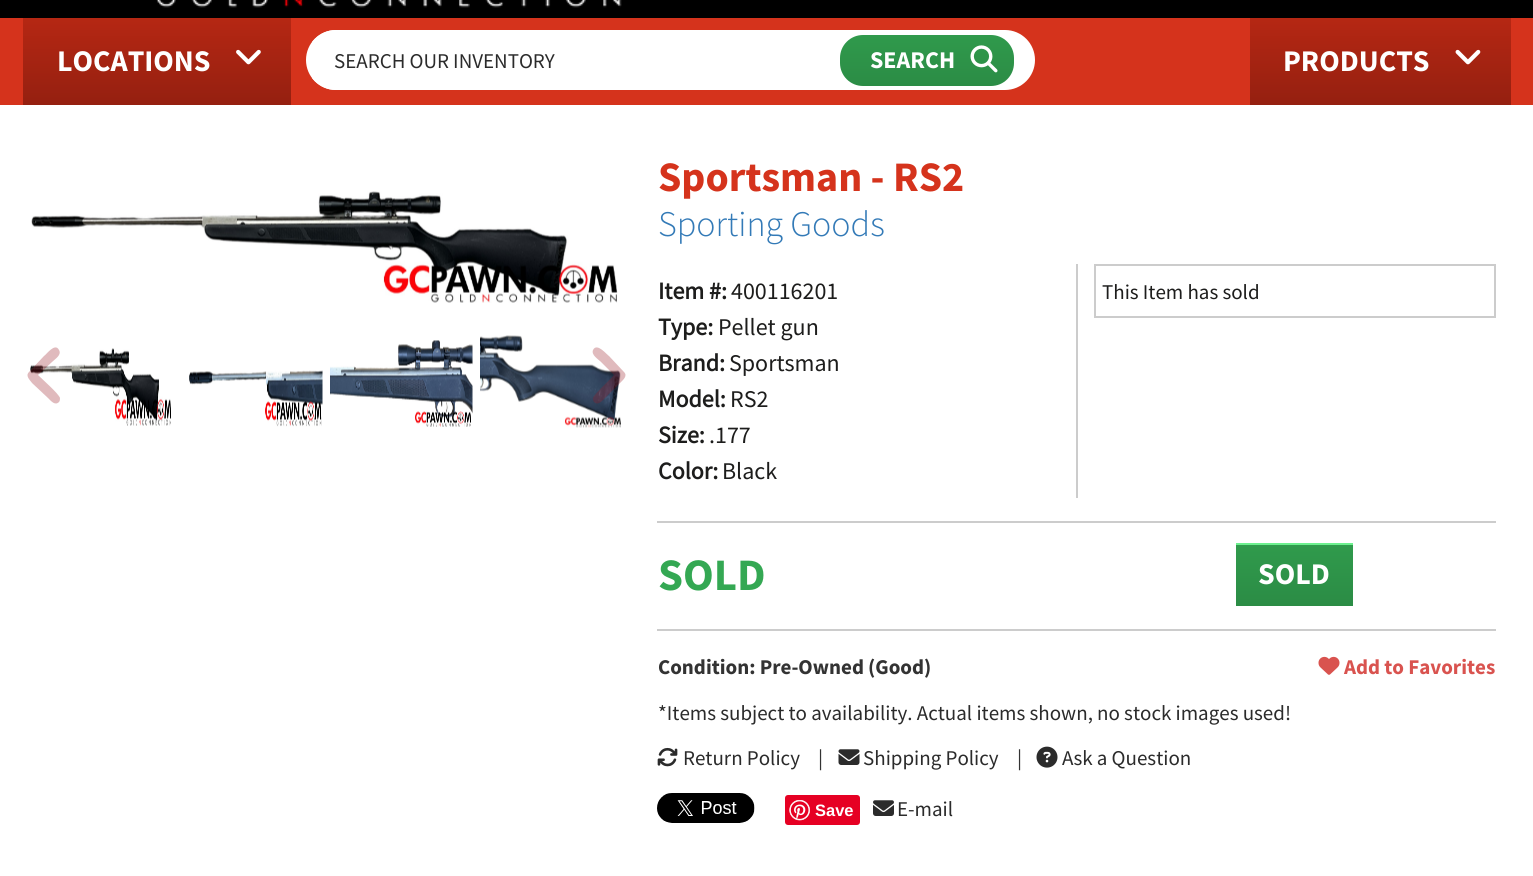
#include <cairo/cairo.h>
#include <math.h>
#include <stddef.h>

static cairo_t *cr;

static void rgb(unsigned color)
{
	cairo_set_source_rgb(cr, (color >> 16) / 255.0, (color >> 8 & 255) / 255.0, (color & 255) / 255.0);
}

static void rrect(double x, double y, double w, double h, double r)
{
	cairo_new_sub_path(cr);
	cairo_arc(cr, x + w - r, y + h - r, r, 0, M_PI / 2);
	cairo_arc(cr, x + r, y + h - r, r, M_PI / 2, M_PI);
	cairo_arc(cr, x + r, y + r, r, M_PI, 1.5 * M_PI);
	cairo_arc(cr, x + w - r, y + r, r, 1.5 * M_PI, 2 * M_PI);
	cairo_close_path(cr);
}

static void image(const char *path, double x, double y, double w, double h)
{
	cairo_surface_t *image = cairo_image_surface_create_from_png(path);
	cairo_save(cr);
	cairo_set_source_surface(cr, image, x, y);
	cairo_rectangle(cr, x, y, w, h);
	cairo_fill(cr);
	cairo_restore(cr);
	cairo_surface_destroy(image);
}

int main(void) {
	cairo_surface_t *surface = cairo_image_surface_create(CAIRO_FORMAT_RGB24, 1533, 876);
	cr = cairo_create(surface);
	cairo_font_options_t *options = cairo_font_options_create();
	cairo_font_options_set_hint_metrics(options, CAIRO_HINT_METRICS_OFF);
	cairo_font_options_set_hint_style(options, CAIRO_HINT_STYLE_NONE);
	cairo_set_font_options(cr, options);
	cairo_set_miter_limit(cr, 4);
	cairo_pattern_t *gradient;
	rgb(0xffffff);
	cairo_paint(cr);
	rgb(0x000000);
	cairo_rectangle(cr, 0, 0, 1533, 18);
	cairo_fill(cr);
	image("img/1.png", 156, 0, 466, 8);
	rgb(0xd5331c);
	cairo_rectangle(cr, 0, 18, 1533, 87);
	cairo_fill(cr);
	gradient = cairo_pattern_create_linear(157, 18, 157, 105);
	cairo_pattern_add_color_stop_rgba(gradient, 0, 0.71, 0.153, 0.075, 1);
	cairo_pattern_add_color_stop_rgba(gradient, 1, 0.584, 0.125, 0.063, 1);
	cairo_set_source(cr, gradient);
	cairo_pattern_destroy(gradient);
	cairo_rectangle(cr, 23, 18, 268, 87);
	cairo_fill(cr);
	image("img/2.png", 236, 49, 25, 16);
	rgb(0xffffff);
	rrect(306, 30, 729, 60, 30);
	cairo_fill(cr);
	cairo_save(cr);
	rrect(306, 30, 729, 60, 30);
	cairo_clip(cr);
	cairo_rectangle(cr, 312, 30, 528, 60);
	cairo_fill(cr);
	cairo_restore(cr);
	gradient = cairo_pattern_create_linear(927, 34, 927, 86);
	cairo_pattern_add_color_stop_rgba(gradient, 0, 0.188, 0.604, 0.298, 1);
	cairo_pattern_add_color_stop_rgba(gradient, 1, 0.169, 0.549, 0.271, 1);
	cairo_set_source(cr, gradient);
	cairo_pattern_destroy(gradient);
	rrect(840, 35, 174, 51, 23);
	cairo_fill(cr);
	image("img/3.png", 970, 45, 28, 28);
	gradient = cairo_pattern_create_linear(1380, 18, 1380, 105);
	cairo_pattern_add_color_stop_rgba(gradient, 0, 0.71, 0.153, 0.075, 1);
	cairo_pattern_add_color_stop_rgba(gradient, 1, 0.584, 0.125, 0.063, 1);
	cairo_set_source(cr, gradient);
	cairo_pattern_destroy(gradient);
	cairo_rectangle(cr, 1250, 18, 261, 87);
	cairo_fill(cr);
	image("img/4.png", 1455, 49, 26, 16);
	image("img/5.png", 31, 191, 587, 112);
	image("img/6.png", 30, 348, 141, 78);
	image("img/7.png", 189, 370, 134, 57);
	image("img/8.png", 330, 340, 143, 87);
	image("img/9.png", 480, 335, 141, 93);
	cairo_set_source_rgba(cr, 0.588, 0.102, 0.137, 0.3);
	cairo_new_path(cr);
	cairo_move_to(cr, 29, 372);
	cairo_curve_to(cr, 25, 376, 30, 380, 32, 383);
	cairo_line_to(cr, 48, 398);
	cairo_curve_to(cr, 51, 401, 55, 406, 59, 402);
	cairo_curve_to(cr, 60, 401, 60, 399, 60, 398);
	cairo_curve_to(cr, 59, 394, 42, 379, 38, 375);
	cairo_line_to(cr, 52, 362);
	cairo_curve_to(cr, 55, 359, 62, 355, 59, 350);
	cairo_curve_to(cr, 55, 342, 46, 355, 44, 356);
	cairo_close_path(cr);
	cairo_fill(cr);
	cairo_new_path(cr);
	cairo_move_to(cr, 624, 372);
	cairo_curve_to(cr, 628, 376, 623, 380, 620, 383);
	cairo_line_to(cr, 605, 398);
	cairo_curve_to(cr, 602, 401, 598, 406, 594, 402);
	cairo_curve_to(cr, 593, 401, 593, 399, 593, 398);
	cairo_curve_to(cr, 594, 394, 611, 379, 614, 375);
	cairo_line_to(cr, 601, 362);
	cairo_curve_to(cr, 598, 359, 591, 355, 593, 350);
	cairo_curve_to(cr, 597, 342, 607, 355, 609, 356);
	cairo_close_path(cr);
	cairo_fill(cr);
	rgb(0xcccccc);
	cairo_rectangle(cr, 1076, 264, 2, 234);
	cairo_fill(cr);
	cairo_rectangle(cr, 1095, 265, 400, 52);
	cairo_stroke(cr);
	cairo_rectangle(cr, 657, 521, 839, 2);
	cairo_fill(cr);
	cairo_rectangle(cr, 657, 629, 839, 2);
	cairo_fill(cr);
	gradient = cairo_pattern_create_linear(1295, 545, 1295, 606);
	cairo_pattern_add_color_stop_rgba(gradient, 0, 0.188, 0.604, 0.298, 1);
	cairo_pattern_add_color_stop_rgba(gradient, 1, 0.169, 0.549, 0.271, 1);
	cairo_set_source(cr, gradient);
	cairo_pattern_destroy(gradient);
	cairo_rectangle(cr, 1236, 545, 117, 61);
	cairo_fill(cr);
	rgb(0x6df08f);
	cairo_rectangle(cr, 1236, 543, 117, 2);
	cairo_fill(cr);
	image("img/10.png", 1318, 656, 22, 19);
	image("img/11.png", 657, 747, 21, 20);
	image("img/12.png", 838, 749, 22, 16);
	image("img/13.png", 1036, 746, 22, 22);
	image("img/14.png", 657, 793, 98, 30);
	rgb(0xe60023);
	rrect(785, 795, 75, 30, 3);
	cairo_fill(cr);
	image("img/15.png", 789, 800, 21, 21);
	image("img/16.png", 873, 800, 21, 16);
	cairo_select_font_face(cr, "Source Sans Pro", CAIRO_FONT_SLANT_NORMAL, CAIRO_FONT_WEIGHT_BOLD);
	cairo_set_font_size(cr, 30);
	rgb(0xffffff);
	cairo_move_to(cr, 57, 71);
	cairo_show_text(cr, "LOCATIONS");
	cairo_select_font_face(cr, "Source Sans Pro", CAIRO_FONT_SLANT_NORMAL, CAIRO_FONT_WEIGHT_NORMAL);
	cairo_set_font_size(cr, 21);
	rgb(0x2b2b2b);
	cairo_move_to(cr, 334, 68);
	cairo_show_text(cr, "SEARCH OUR INVENTORY");
	cairo_select_font_face(cr, "Source Sans Pro", CAIRO_FONT_SLANT_NORMAL, CAIRO_FONT_WEIGHT_BOLD);
	cairo_set_font_size(cr, 24);
	rgb(0xffffff);
	cairo_move_to(cr, 870, 68);
	cairo_show_text(cr, "SEARCH");
	cairo_set_font_size(cr, 30);
	cairo_move_to(cr, 1283, 71);
	cairo_show_text(cr, "PRODUCTS");
	cairo_set_font_size(cr, 42);
	rgb(0xd5331c);
	cairo_move_to(cr, 658, 191);
	cairo_show_text(cr, "Sportsman - RS2");
	cairo_select_font_face(cr, "Source Sans Pro Light", CAIRO_FONT_SLANT_NORMAL, CAIRO_FONT_WEIGHT_NORMAL);
	cairo_set_font_size(cr, 36);
	rgb(0x337ab7);
	cairo_move_to(cr, 658, 236);
	cairo_show_text(cr, "Sporting Goods");
	cairo_select_font_face(cr, "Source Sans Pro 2", CAIRO_FONT_SLANT_NORMAL, CAIRO_FONT_WEIGHT_BOLD);
	cairo_set_font_size(cr, 24);
	rgb(0x1d1d1c);
	cairo_move_to(cr, 658, 299);
	cairo_show_text(cr, "Item #:");
	cairo_select_font_face(cr, "Source Sans Pro", CAIRO_FONT_SLANT_NORMAL, CAIRO_FONT_WEIGHT_NORMAL);
	cairo_move_to(cr, 731, 299);
	cairo_show_text(cr, "400116201");
	cairo_select_font_face(cr, "Source Sans Pro 2", CAIRO_FONT_SLANT_NORMAL, CAIRO_FONT_WEIGHT_BOLD);
	cairo_move_to(cr, 658, 335);
	cairo_show_text(cr, "Type:");
	cairo_select_font_face(cr, "Source Sans Pro", CAIRO_FONT_SLANT_NORMAL, CAIRO_FONT_WEIGHT_NORMAL);
	cairo_move_to(cr, 718, 335);
	cairo_show_text(cr, "Pellet gun");
	cairo_select_font_face(cr, "Source Sans Pro 2", CAIRO_FONT_SLANT_NORMAL, CAIRO_FONT_WEIGHT_BOLD);
	cairo_move_to(cr, 658, 371);
	cairo_show_text(cr, "Brand:");
	cairo_select_font_face(cr, "Source Sans Pro", CAIRO_FONT_SLANT_NORMAL, CAIRO_FONT_WEIGHT_NORMAL);
	cairo_move_to(cr, 729, 371);
	cairo_show_text(cr, "Sportsman");
	cairo_select_font_face(cr, "Source Sans Pro 2", CAIRO_FONT_SLANT_NORMAL, CAIRO_FONT_WEIGHT_BOLD);
	cairo_move_to(cr, 658, 407);
	cairo_show_text(cr, "Model:");
	cairo_select_font_face(cr, "Source Sans Pro", CAIRO_FONT_SLANT_NORMAL, CAIRO_FONT_WEIGHT_NORMAL);
	cairo_move_to(cr, 730, 407);
	cairo_show_text(cr, "RS2");
	cairo_select_font_face(cr, "Source Sans Pro 2", CAIRO_FONT_SLANT_NORMAL, CAIRO_FONT_WEIGHT_BOLD);
	cairo_move_to(cr, 658, 443);
	cairo_show_text(cr, "Size:");
	cairo_select_font_face(cr, "Source Sans Pro", CAIRO_FONT_SLANT_NORMAL, CAIRO_FONT_WEIGHT_NORMAL);
	cairo_move_to(cr, 709, 443);
	cairo_show_text(cr, ".177");
	cairo_select_font_face(cr, "Source Sans Pro 2", CAIRO_FONT_SLANT_NORMAL, CAIRO_FONT_WEIGHT_BOLD);
	cairo_move_to(cr, 658, 479);
	cairo_show_text(cr, "Color:");
	cairo_select_font_face(cr, "Source Sans Pro", CAIRO_FONT_SLANT_NORMAL, CAIRO_FONT_WEIGHT_NORMAL);
	cairo_move_to(cr, 722, 479);
	cairo_show_text(cr, "Black");
	cairo_set_font_size(cr, 21);
	cairo_move_to(cr, 1102, 299);
	cairo_show_text(cr, "This Item has sold");
	cairo_select_font_face(cr, "Source Sans Pro", CAIRO_FONT_SLANT_NORMAL, CAIRO_FONT_WEIGHT_BOLD);
	cairo_set_font_size(cr, 45);
	rgb(0x34a853);
	cairo_move_to(cr, 658, 590);
	cairo_show_text(cr, "SOLD");
	cairo_set_font_size(cr, 30);
	rgb(0xffffff);
	cairo_move_to(cr, 1258, 584);
	cairo_show_text(cr, "SOLD");
	cairo_set_font_size(cr, 21);
	rgb(0x333333);
	cairo_move_to(cr, 658, 674);
	cairo_show_text(cr, "Condition: Pre-Owned (Good)");
	rgb(0xd9534f);
	cairo_move_to(cr, 1344, 674);
	cairo_show_text(cr, "Add to Favorites");
	cairo_select_font_face(cr, "Source Sans Pro", CAIRO_FONT_SLANT_NORMAL, CAIRO_FONT_WEIGHT_NORMAL);
	rgb(0x2b2b2b);
	cairo_move_to(cr, 658, 720);
	cairo_show_text(cr, "*Items subject to availability. Actual items shown, no stock images used!");
	cairo_move_to(cr, 683, 765);
	cairo_show_text(cr, "Return Policy");
	rgb(0x333333);
	cairo_move_to(cr, 818, 765);
	cairo_show_text(cr, "|");
	rgb(0x2b2b2b);
	cairo_move_to(cr, 863, 765);
	cairo_show_text(cr, "Shipping Policy");
	rgb(0x333333);
	cairo_move_to(cr, 1017, 765);
	cairo_show_text(cr, "|");
	rgb(0x2b2b2b);
	cairo_move_to(cr, 1062, 765);
	cairo_show_text(cr, "Ask a Question");
	cairo_select_font_face(cr, "Liberation Sans", CAIRO_FONT_SLANT_NORMAL, CAIRO_FONT_WEIGHT_BOLD);
	cairo_set_font_size(cr, 16.5);
	rgb(0xffffff);
	cairo_move_to(cr, 815, 816);
	cairo_show_text(cr, "Save");
	cairo_select_font_face(cr, "Source Sans Pro", CAIRO_FONT_SLANT_NORMAL, CAIRO_FONT_WEIGHT_NORMAL);
	cairo_set_font_size(cr, 21);
	rgb(0x2b2b2b);
	cairo_move_to(cr, 897, 816);
	cairo_show_text(cr, "E-mail");
	cairo_surface_write_to_png(surface, "page.png");
	cairo_font_options_destroy(options);
	cairo_destroy(cr);
	cairo_surface_destroy(surface);
	return 0;
}
